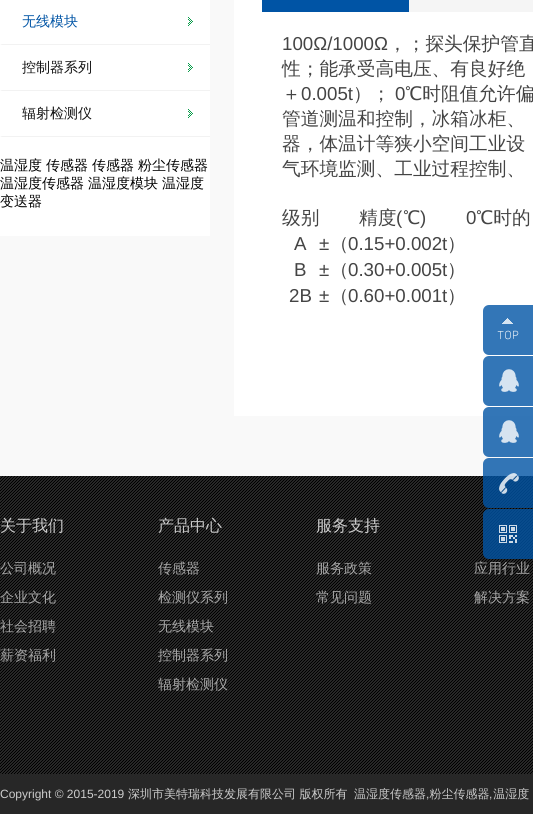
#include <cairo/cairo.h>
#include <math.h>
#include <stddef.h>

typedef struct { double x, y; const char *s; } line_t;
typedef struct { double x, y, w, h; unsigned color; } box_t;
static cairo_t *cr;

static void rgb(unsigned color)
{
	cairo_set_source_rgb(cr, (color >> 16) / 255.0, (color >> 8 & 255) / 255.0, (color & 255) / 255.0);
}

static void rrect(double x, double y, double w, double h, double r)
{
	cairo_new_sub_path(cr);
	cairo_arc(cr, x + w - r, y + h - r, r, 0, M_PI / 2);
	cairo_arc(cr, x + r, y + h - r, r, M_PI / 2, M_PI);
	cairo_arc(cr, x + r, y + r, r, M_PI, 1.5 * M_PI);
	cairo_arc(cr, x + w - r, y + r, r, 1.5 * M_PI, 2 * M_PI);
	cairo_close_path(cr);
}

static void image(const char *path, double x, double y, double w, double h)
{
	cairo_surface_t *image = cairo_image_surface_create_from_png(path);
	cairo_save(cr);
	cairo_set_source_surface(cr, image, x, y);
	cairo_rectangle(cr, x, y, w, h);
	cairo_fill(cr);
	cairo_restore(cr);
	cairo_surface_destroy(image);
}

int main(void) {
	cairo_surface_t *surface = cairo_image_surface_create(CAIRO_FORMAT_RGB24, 533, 814);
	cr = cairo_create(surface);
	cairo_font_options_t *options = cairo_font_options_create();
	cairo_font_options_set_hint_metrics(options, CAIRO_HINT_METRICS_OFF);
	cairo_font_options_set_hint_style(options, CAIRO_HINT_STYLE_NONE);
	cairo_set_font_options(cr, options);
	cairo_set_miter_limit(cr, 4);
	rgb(0xf9f9f9);
	cairo_paint(cr);
	rgb(0xffffff);
	cairo_rectangle(cr, 0, 0, 210, 236);
	cairo_fill(cr);
	image("img/1.png", 188, 17, 5, 9);
	rgb(0xf2f2f2);
	cairo_new_path(cr);
	cairo_move_to(cr, 210, 45);
	cairo_line_to(cr, 0, 45);
	cairo_line_to(cr, 2, 44);
	cairo_line_to(cr, 210, 44);
	cairo_close_path(cr);
	cairo_fill(cr);
	image("img/1.png", 188, 63, 5, 9);
	cairo_new_path(cr);
	cairo_move_to(cr, 210, 91);
	cairo_line_to(cr, 0, 91);
	cairo_line_to(cr, 2, 90);
	cairo_line_to(cr, 210, 90);
	cairo_close_path(cr);
	cairo_fill(cr);
	image("img/1.png", 188, 109, 5, 9);
	cairo_new_path(cr);
	cairo_move_to(cr, 210, 137);
	cairo_line_to(cr, 0, 137);
	cairo_line_to(cr, 2, 136);
	cairo_line_to(cr, 210, 136);
	cairo_close_path(cr);
	cairo_fill(cr);
	{
		static const box_t items[] = {
			{234, 0, 299, 416, 0xffffff},
			{409, 0, 124, 12, 0xf5f5f5},
			{262, 0, 147, 12, 0x0054a5},
		};
		for (size_t i = 0; i < sizeof items / sizeof *items; i++) {
			rgb(items[i].color);
			cairo_rectangle(cr, items[i].x, items[i].y, items[i].w, items[i].h);
			cairo_fill(cr);
		}
	}
	rgb(0x3376b7);
	rrect(483, 305, 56, 50, 6);
	cairo_fill(cr);
	image("img/2.png", 497, 318, 22, 22);
	rrect(483, 356, 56, 50, 6);
	cairo_fill(cr);
	image("img/3.png", 499, 369, 20, 23);
	cairo_set_source_rgba(cr, 0, 0.329, 0.647, 0.8);
	rrect(483, 407, 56, 50, 6);
	cairo_fill(cr);
	image("img/4.png", 499, 420, 20, 23);
	image("img/7.png", 0, 476, 533, 298);
	rrect(483, 458, 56, 50, 6);
	cairo_fill(cr);
	image("img/5.png", 499, 473, 20, 21);
	rrect(483, 509, 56, 50, 6);
	cairo_fill(cr);
	image("img/6.png", 499, 525, 18, 18);
	rgb(0x272727);
	cairo_rectangle(cr, 0, 774, 533, 40);
	cairo_fill(cr);
	cairo_select_font_face(cr, "WenQuanYi Zen Hei Medium", CAIRO_FONT_SLANT_NORMAL, CAIRO_FONT_WEIGHT_NORMAL);
	cairo_set_font_size(cr, 14);
	rgb(0x0054a5);
	cairo_move_to(cr, 22, 26);
	cairo_show_text(cr, "无线模块");
	rgb(0x131313);
	cairo_move_to(cr, 22, 72);
	cairo_show_text(cr, "控制器系列");
	cairo_move_to(cr, 22, 118);
	cairo_show_text(cr, "辐射检测仪");
	rgb(0x000000);
	{
		static const line_t items[] = {
			{0, 170, "温湿度"},
			{46, 170, "传感器"},
			{92, 170, "传感器"},
			{138, 170, "粉尘传感器"},
			{0, 188, "温湿度传感器"},
			{88, 188, "温湿度模块"},
			{162, 188, "温湿度"},
			{0, 206, "变送器"},
		};
		for (size_t i = 0; i < sizeof items / sizeof *items; i++) {
			cairo_move_to(cr, items[i].x, items[i].y);
			cairo_show_text(cr, items[i].s);
		}
	}
	cairo_select_font_face(cr, "Liberation Sans", CAIRO_FONT_SLANT_NORMAL, CAIRO_FONT_WEIGHT_NORMAL);
	cairo_set_font_size(cr, 18.7);
	rgb(0x444444);
	cairo_move_to(cr, 282, 50);
	cairo_show_text(cr, "100Ω/1000Ω");
	cairo_select_font_face(cr, "WenQuanYi Zen Hei Medium", CAIRO_FONT_SLANT_NORMAL, CAIRO_FONT_WEIGHT_NORMAL);
	{
		static const line_t items[] = {
			{388, 50, "，；探头保护管直"},
			{282, 75, "性；能承受高电压、有良好绝"},
			{282, 100, "＋"},
		};
		for (size_t i = 0; i < sizeof items / sizeof *items; i++) {
			cairo_move_to(cr, items[i].x, items[i].y);
			cairo_show_text(cr, items[i].s);
		}
	}
	cairo_select_font_face(cr, "Liberation Sans", CAIRO_FONT_SLANT_NORMAL, CAIRO_FONT_WEIGHT_NORMAL);
	cairo_move_to(cr, 301, 100);
	cairo_show_text(cr, "0.005t");
	cairo_select_font_face(cr, "WenQuanYi Zen Hei Medium", CAIRO_FONT_SLANT_NORMAL, CAIRO_FONT_WEIGHT_NORMAL);
	cairo_move_to(cr, 353, 100);
	cairo_show_text(cr, "）；");
	cairo_select_font_face(cr, "Liberation Sans", CAIRO_FONT_SLANT_NORMAL, CAIRO_FONT_WEIGHT_NORMAL);
	cairo_move_to(cr, 395, 100);
	cairo_show_text(cr, "0");
	cairo_select_font_face(cr, "WenQuanYi Zen Hei Medium", CAIRO_FONT_SLANT_NORMAL, CAIRO_FONT_WEIGHT_NORMAL);
	{
		static const line_t items[] = {
			{405, 100, "℃时阻值允许偏"},
			{282, 125, "管道测温和控制，冰箱冰柜、"},
			{282, 150, "器，体温计等狭小空间工业设"},
			{282, 175, "气环境监测、工业过程控制、"},
			{282, 224, "级别"},
			{359, 224, "精度"},
		};
		for (size_t i = 0; i < sizeof items / sizeof *items; i++) {
			cairo_move_to(cr, items[i].x, items[i].y);
			cairo_show_text(cr, items[i].s);
		}
	}
	cairo_select_font_face(cr, "Liberation Sans", CAIRO_FONT_SLANT_NORMAL, CAIRO_FONT_WEIGHT_NORMAL);
	cairo_move_to(cr, 396, 224);
	cairo_show_text(cr, "(");
	cairo_select_font_face(cr, "WenQuanYi Zen Hei Medium", CAIRO_FONT_SLANT_NORMAL, CAIRO_FONT_WEIGHT_NORMAL);
	cairo_move_to(cr, 403, 224);
	cairo_show_text(cr, "℃");
	cairo_select_font_face(cr, "Liberation Sans", CAIRO_FONT_SLANT_NORMAL, CAIRO_FONT_WEIGHT_NORMAL);
	cairo_move_to(cr, 420, 224);
	cairo_show_text(cr, ")");
	cairo_move_to(cr, 466, 224);
	cairo_show_text(cr, "0");
	cairo_select_font_face(cr, "WenQuanYi Zen Hei Medium", CAIRO_FONT_SLANT_NORMAL, CAIRO_FONT_WEIGHT_NORMAL);
	cairo_move_to(cr, 476, 224);
	cairo_show_text(cr, "℃时的");
	cairo_select_font_face(cr, "Liberation Sans", CAIRO_FONT_SLANT_NORMAL, CAIRO_FONT_WEIGHT_NORMAL);
	cairo_move_to(cr, 294, 250);
	cairo_show_text(cr, "A");
	cairo_move_to(cr, 319, 250);
	cairo_show_text(cr, "±");
	cairo_select_font_face(cr, "WenQuanYi Zen Hei Medium", CAIRO_FONT_SLANT_NORMAL, CAIRO_FONT_WEIGHT_NORMAL);
	cairo_move_to(cr, 330, 250);
	cairo_show_text(cr, "（");
	cairo_select_font_face(cr, "Liberation Sans", CAIRO_FONT_SLANT_NORMAL, CAIRO_FONT_WEIGHT_NORMAL);
	cairo_move_to(cr, 348, 250);
	cairo_show_text(cr, "0.15+0.002t");
	cairo_select_font_face(cr, "WenQuanYi Zen Hei Medium", CAIRO_FONT_SLANT_NORMAL, CAIRO_FONT_WEIGHT_NORMAL);
	cairo_move_to(cr, 447, 250);
	cairo_show_text(cr, "）");
	cairo_select_font_face(cr, "Liberation Sans", CAIRO_FONT_SLANT_NORMAL, CAIRO_FONT_WEIGHT_NORMAL);
	cairo_move_to(cr, 294, 276);
	cairo_show_text(cr, "B");
	cairo_move_to(cr, 319, 276);
	cairo_show_text(cr, "±");
	cairo_select_font_face(cr, "WenQuanYi Zen Hei Medium", CAIRO_FONT_SLANT_NORMAL, CAIRO_FONT_WEIGHT_NORMAL);
	cairo_move_to(cr, 330, 276);
	cairo_show_text(cr, "（");
	cairo_select_font_face(cr, "Liberation Sans", CAIRO_FONT_SLANT_NORMAL, CAIRO_FONT_WEIGHT_NORMAL);
	cairo_move_to(cr, 348, 276);
	cairo_show_text(cr, "0.30+0.005t");
	cairo_select_font_face(cr, "WenQuanYi Zen Hei Medium", CAIRO_FONT_SLANT_NORMAL, CAIRO_FONT_WEIGHT_NORMAL);
	cairo_move_to(cr, 447, 276);
	cairo_show_text(cr, "）");
	cairo_select_font_face(cr, "Liberation Sans", CAIRO_FONT_SLANT_NORMAL, CAIRO_FONT_WEIGHT_NORMAL);
	cairo_move_to(cr, 289, 302);
	cairo_show_text(cr, "2B");
	cairo_move_to(cr, 319, 302);
	cairo_show_text(cr, "±");
	cairo_select_font_face(cr, "WenQuanYi Zen Hei Medium", CAIRO_FONT_SLANT_NORMAL, CAIRO_FONT_WEIGHT_NORMAL);
	cairo_move_to(cr, 330, 302);
	cairo_show_text(cr, "（");
	cairo_select_font_face(cr, "Liberation Sans", CAIRO_FONT_SLANT_NORMAL, CAIRO_FONT_WEIGHT_NORMAL);
	cairo_move_to(cr, 348, 302);
	cairo_show_text(cr, "0.60+0.001t");
	cairo_select_font_face(cr, "WenQuanYi Zen Hei Medium", CAIRO_FONT_SLANT_NORMAL, CAIRO_FONT_WEIGHT_NORMAL);
	cairo_move_to(cr, 447, 302);
	cairo_show_text(cr, "）");
	cairo_set_font_size(cr, 16);
	rgb(0xcccccc);
	cairo_move_to(cr, 0, 531);
	cairo_show_text(cr, "关于我们");
	cairo_set_font_size(cr, 14);
	rgb(0xa6a6a6);
	{
		static const line_t items[] = {
			{0, 573, "公司概况"},
			{0, 602, "企业文化"},
			{0, 631, "社会招聘"},
			{0, 660, "薪资福利"},
		};
		for (size_t i = 0; i < sizeof items / sizeof *items; i++) {
			cairo_move_to(cr, items[i].x, items[i].y);
			cairo_show_text(cr, items[i].s);
		}
	}
	cairo_set_font_size(cr, 16);
	rgb(0xcccccc);
	cairo_move_to(cr, 158, 531);
	cairo_show_text(cr, "产品中心");
	cairo_set_font_size(cr, 14);
	rgb(0xa6a6a6);
	{
		static const line_t items[] = {
			{158, 573, "传感器"},
			{158, 602, "检测仪系列"},
			{158, 631, "无线模块"},
			{158, 660, "控制器系列"},
			{158, 689, "辐射检测仪"},
		};
		for (size_t i = 0; i < sizeof items / sizeof *items; i++) {
			cairo_move_to(cr, items[i].x, items[i].y);
			cairo_show_text(cr, items[i].s);
		}
	}
	cairo_set_font_size(cr, 16);
	rgb(0xcccccc);
	cairo_move_to(cr, 316, 531);
	cairo_show_text(cr, "服务支持");
	cairo_set_font_size(cr, 14);
	rgb(0xa6a6a6);
	{
		static const line_t items[] = {
			{316, 573, "服务政策"},
			{316, 602, "常见问题"},
			{474, 573, "应用行业"},
			{474, 602, "解决方案"},
		};
		for (size_t i = 0; i < sizeof items / sizeof *items; i++) {
			cairo_move_to(cr, items[i].x, items[i].y);
			cairo_show_text(cr, items[i].s);
		}
	}
	cairo_select_font_face(cr, "Liberation Sans", CAIRO_FONT_SLANT_NORMAL, CAIRO_FONT_WEIGHT_NORMAL);
	cairo_set_font_size(cr, 12);
	rgb(0xcccccc);
	cairo_move_to(cr, 0, 798);
	cairo_show_text(cr, "Copyright © 2015-2019");
	cairo_select_font_face(cr, "WenQuanYi Zen Hei Medium", CAIRO_FONT_SLANT_NORMAL, CAIRO_FONT_WEIGHT_NORMAL);
	cairo_move_to(cr, 128, 798);
	cairo_show_text(cr, "深圳市美特瑞科技发展有限公司 版权所有");
	cairo_move_to(cr, 354, 798);
	cairo_show_text(cr, "温湿度传感器 粉尘传感器 温湿度");
	cairo_select_font_face(cr, "Liberation Sans", CAIRO_FONT_SLANT_NORMAL, CAIRO_FONT_WEIGHT_NORMAL);
	cairo_move_to(cr, 426, 798);
	cairo_show_text(cr, ",");
	cairo_move_to(cr, 489, 798);
	cairo_show_text(cr, ",");
	cairo_surface_write_to_png(surface, "page.png");
	cairo_font_options_destroy(options);
	cairo_destroy(cr);
	cairo_surface_destroy(surface);
	return 0;
}
